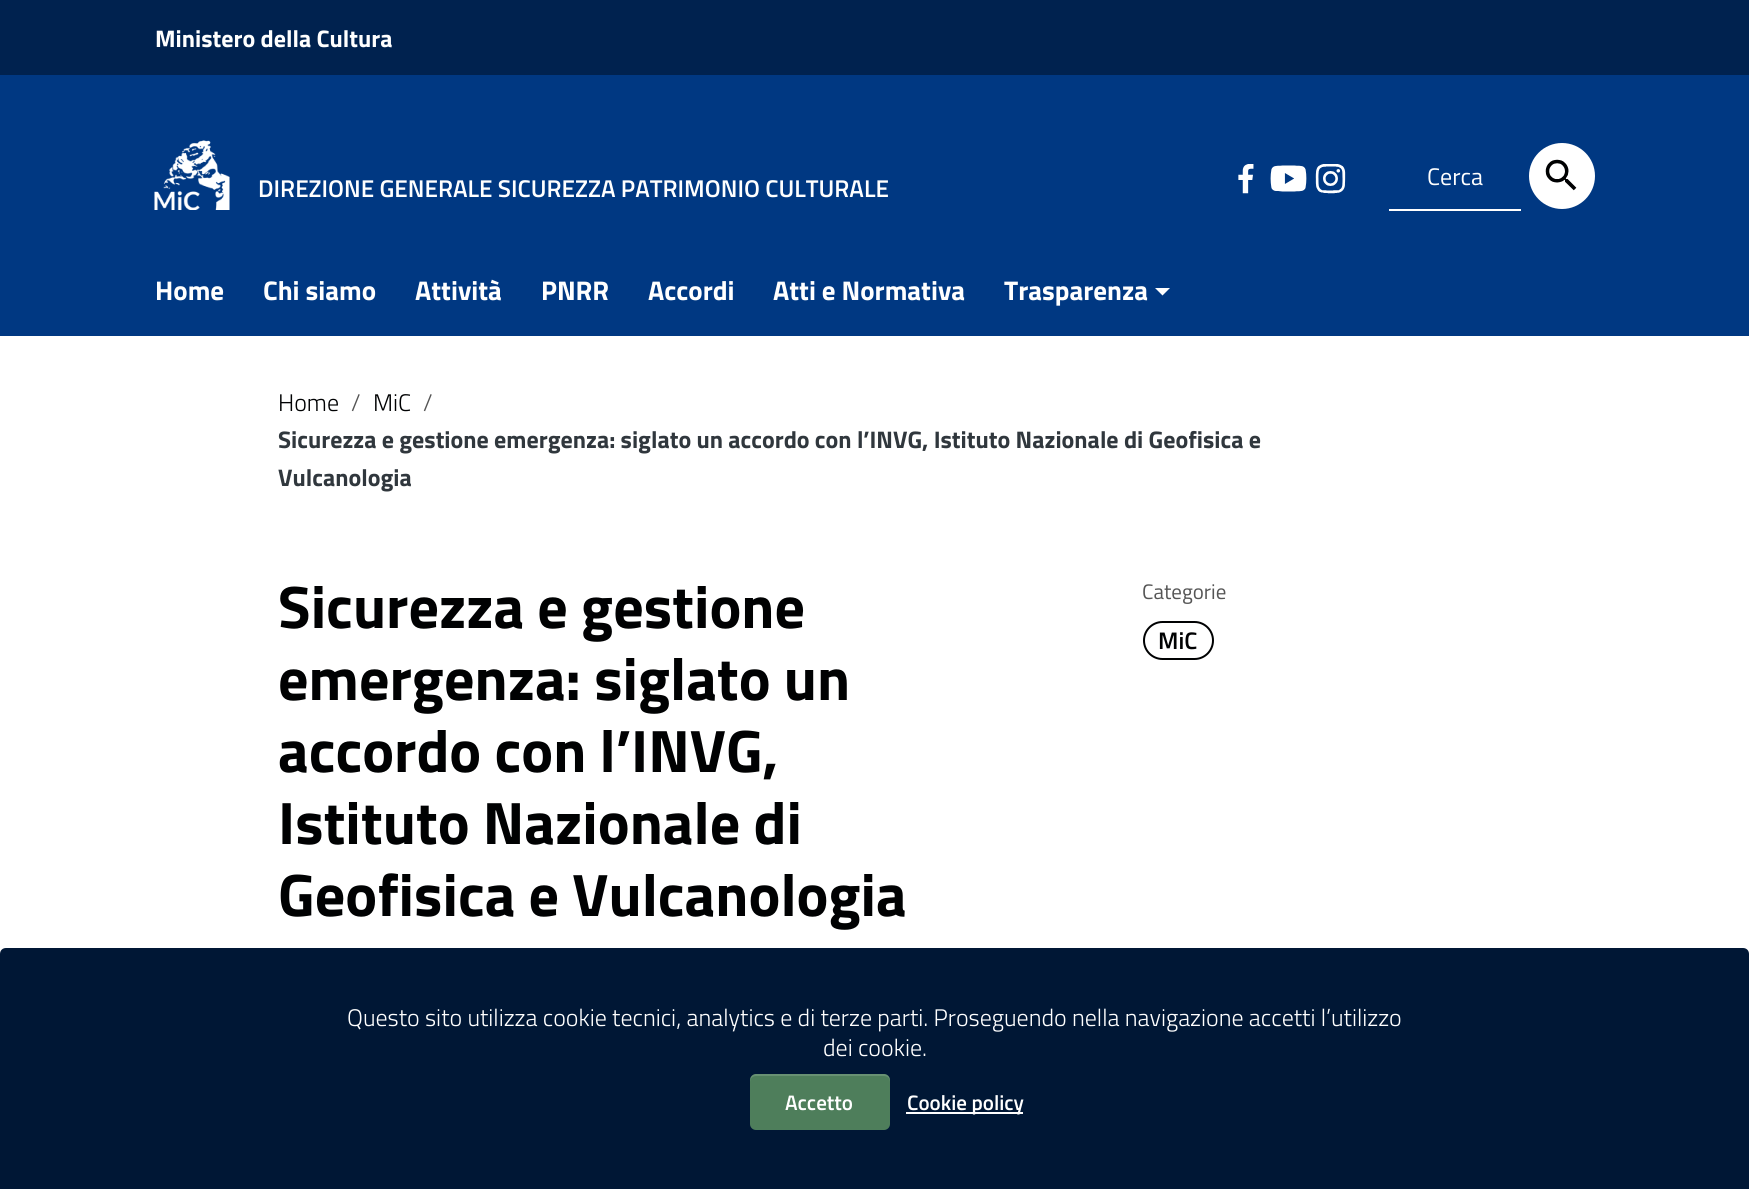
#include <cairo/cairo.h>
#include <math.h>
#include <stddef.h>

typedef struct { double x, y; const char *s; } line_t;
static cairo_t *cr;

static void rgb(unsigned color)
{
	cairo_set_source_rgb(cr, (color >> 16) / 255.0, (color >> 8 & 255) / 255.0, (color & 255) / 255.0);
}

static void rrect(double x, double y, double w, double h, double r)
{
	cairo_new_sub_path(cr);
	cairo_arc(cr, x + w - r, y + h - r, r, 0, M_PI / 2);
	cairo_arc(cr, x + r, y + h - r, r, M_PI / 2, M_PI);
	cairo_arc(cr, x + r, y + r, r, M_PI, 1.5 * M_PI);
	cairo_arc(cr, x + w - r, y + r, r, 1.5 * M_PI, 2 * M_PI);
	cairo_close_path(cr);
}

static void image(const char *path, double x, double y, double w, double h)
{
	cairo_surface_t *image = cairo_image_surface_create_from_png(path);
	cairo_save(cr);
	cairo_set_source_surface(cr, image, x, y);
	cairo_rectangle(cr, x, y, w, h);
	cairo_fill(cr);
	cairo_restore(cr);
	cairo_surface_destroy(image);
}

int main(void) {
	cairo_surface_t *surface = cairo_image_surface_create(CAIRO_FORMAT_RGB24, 1749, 1189);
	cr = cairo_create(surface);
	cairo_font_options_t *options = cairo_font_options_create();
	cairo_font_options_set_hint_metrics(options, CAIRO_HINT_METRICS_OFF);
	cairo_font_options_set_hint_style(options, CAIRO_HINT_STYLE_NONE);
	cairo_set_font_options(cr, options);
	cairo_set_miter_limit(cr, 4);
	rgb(0xffffff);
	cairo_paint(cr);
	rgb(0x003882);
	cairo_rectangle(cr, 0, 75, 1749, 261);
	cairo_fill(cr);
	rgb(0x00224f);
	cairo_rectangle(cr, 0, 0, 1749, 75);
	cairo_fill(cr);
	image("img/1.png", 1238, 164, 16, 30);
	image("img/2.png", 1270, 165, 37, 27);
	image("img/3.png", 1315, 164, 31, 30);
	rgb(0xffffff);
	cairo_rectangle(cr, 1389, 209, 132, 2);
	cairo_fill(cr);
	cairo_arc(cr, 1562, 176, 33, 0, 2 * M_PI);
	cairo_fill(cr);
	image("img/4.png", 1545, 159, 32, 32);
	image("img/5.png", 154, 140, 76, 70);
	cairo_new_path(cr);
	cairo_move_to(cr, 1155, 288);
	cairo_line_to(cr, 1170, 288);
	cairo_line_to(cr, 1162.5, 295.5);
	cairo_close_path(cr);
	cairo_fill(cr);
	rrect(1144, 622, 69, 37, 18.5);
	rgb(0x000102);
	cairo_stroke(cr);
	rgb(0x001735);
	cairo_new_path(cr);
	cairo_move_to(cr, 6, 948);
	cairo_line_to(cr, 1743, 948);
	cairo_curve_to(cr, 1746.5, 948, 1749, 950.5, 1749, 954);
	cairo_line_to(cr, 1749, 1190);
	cairo_line_to(cr, 0, 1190);
	cairo_line_to(cr, 0, 954);
	cairo_curve_to(cr, 0, 950.5, 2.5, 948, 6, 948);
	cairo_close_path(cr);
	cairo_fill(cr);
	rgb(0x4e7e5b);
	rrect(750, 1074, 140, 56, 6);
	cairo_fill(cr);
	cairo_set_source_rgba(cr, 1, 1, 1, 0.15);
	cairo_new_path(cr);
	cairo_move_to(cr, 756, 1076);
	cairo_line_to(cr, 884, 1076);
	cairo_curve_to(cr, 887, 1076, 890, 1078, 890, 1082);
	cairo_line_to(cr, 890, 1080);
	cairo_curve_to(cr, 890, 1077, 887, 1074, 884, 1074);
	cairo_line_to(cr, 756, 1074);
	cairo_curve_to(cr, 753, 1074, 750, 1077, 750, 1080);
	cairo_line_to(cr, 750, 1082);
	cairo_curve_to(cr, 750, 1078, 753, 1076, 756, 1076);
	cairo_close_path(cr);
	cairo_fill(cr);
	rgb(0xffffff);
	cairo_rectangle(cr, 906, 1112, 117, 2);
	cairo_fill(cr);
	cairo_select_font_face(cr, "Titillium Web", CAIRO_FONT_SLANT_NORMAL, CAIRO_FONT_WEIGHT_BOLD);
	cairo_set_font_size(cr, 24);
	cairo_move_to(cr, 155, 47);
	cairo_show_text(cr, "Ministero della Cultura");
	cairo_select_font_face(cr, "Titillium Web", CAIRO_FONT_SLANT_NORMAL, CAIRO_FONT_WEIGHT_NORMAL);
	cairo_move_to(cr, 1427, 185);
	cairo_show_text(cr, "Cerca");
	cairo_select_font_face(cr, "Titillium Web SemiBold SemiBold", CAIRO_FONT_SLANT_NORMAL, CAIRO_FONT_WEIGHT_NORMAL);
	cairo_set_font_size(cr, 24.3);
	cairo_move_to(cr, 258, 197);
	cairo_show_text(cr, "DIREZIONE GENERALE SICUREZZA PATRIMONIO CULTURALE");
	cairo_select_font_face(cr, "Titillium Web", CAIRO_FONT_SLANT_NORMAL, CAIRO_FONT_WEIGHT_BOLD);
	cairo_set_font_size(cr, 27);
	{
		static const line_t items[] = {
			{155, 300, "Home"},
			{263, 300, "Chi siamo"},
			{415, 300, "Attività"},
			{541, 300, "PNRR"},
			{648, 300, "Accordi"},
			{773, 300, "Atti e Normativa"},
			{1004, 300, "Trasparenza"},
		};
		for (size_t i = 0; i < sizeof items / sizeof *items; i++) {
			cairo_move_to(cr, items[i].x, items[i].y);
			cairo_show_text(cr, items[i].s);
		}
	}
	cairo_select_font_face(cr, "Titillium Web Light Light", CAIRO_FONT_SLANT_NORMAL, CAIRO_FONT_WEIGHT_NORMAL);
	cairo_set_font_size(cr, 24);
	rgb(0x000102);
	cairo_move_to(cr, 278, 411);
	cairo_show_text(cr, "Home");
	rgb(0x555555);
	cairo_move_to(cr, 351, 411);
	cairo_show_text(cr, "/");
	rgb(0x000102);
	cairo_move_to(cr, 373, 411);
	cairo_show_text(cr, "MiC");
	rgb(0x555555);
	cairo_move_to(cr, 423, 411);
	cairo_show_text(cr, "/");
	cairo_select_font_face(cr, "Titillium Web", CAIRO_FONT_SLANT_NORMAL, CAIRO_FONT_WEIGHT_BOLD);
	rgb(0x30373d);
	cairo_move_to(cr, 278, 448);
	cairo_show_text(cr, "Sicurezza e gestione emergenza: siglato un accordo con l’INVG, Istituto Nazionale di Geofisica e");
	cairo_move_to(cr, 278, 486);
	cairo_show_text(cr, "Vulcanologia");
	cairo_set_font_size(cr, 60);
	rgb(0x000102);
	{
		static const line_t items[] = {
			{278, 628, "Sicurezza e gestione"},
			{278, 700, "emergenza: siglato un"},
			{278, 772, "accordo con l’INVG,"},
			{278, 844, "Istituto Nazionale di"},
			{278, 916, "Geofisica e Vulcanologia"},
		};
		for (size_t i = 0; i < sizeof items / sizeof *items; i++) {
			cairo_move_to(cr, items[i].x, items[i].y);
			cairo_show_text(cr, items[i].s);
		}
	}
	cairo_select_font_face(cr, "Titillium Web", CAIRO_FONT_SLANT_NORMAL, CAIRO_FONT_WEIGHT_NORMAL);
	cairo_set_font_size(cr, 21);
	rgb(0x555555);
	cairo_move_to(cr, 1142, 599);
	cairo_show_text(cr, "Categorie");
	cairo_select_font_face(cr, "Titillium Web SemiBold SemiBold", CAIRO_FONT_SLANT_NORMAL, CAIRO_FONT_WEIGHT_NORMAL);
	cairo_set_font_size(cr, 24);
	rgb(0x000102);
	cairo_move_to(cr, 1158, 649);
	cairo_show_text(cr, "MiC");
	cairo_select_font_face(cr, "Titillium Web Light Light", CAIRO_FONT_SLANT_NORMAL, CAIRO_FONT_WEIGHT_NORMAL);
	rgb(0xffffff);
	cairo_move_to(cr, 347, 1026);
	cairo_show_text(cr, "Questo sito utilizza cookie tecnici, analytics e di terze parti. Proseguendo nella navigazione accetti l’utilizzo");
	cairo_move_to(cr, 823, 1056);
	cairo_show_text(cr, "dei cookie.");
	cairo_select_font_face(cr, "Titillium Web SemiBold SemiBold", CAIRO_FONT_SLANT_NORMAL, CAIRO_FONT_WEIGHT_NORMAL);
	cairo_set_font_size(cr, 21);
	cairo_move_to(cr, 785, 1110);
	cairo_show_text(cr, "Accetto");
	cairo_move_to(cr, 907, 1110);
	cairo_show_text(cr, "Cookie policy");
	cairo_surface_write_to_png(surface, "page.png");
	cairo_font_options_destroy(options);
	cairo_destroy(cr);
	cairo_surface_destroy(surface);
	return 0;
}
